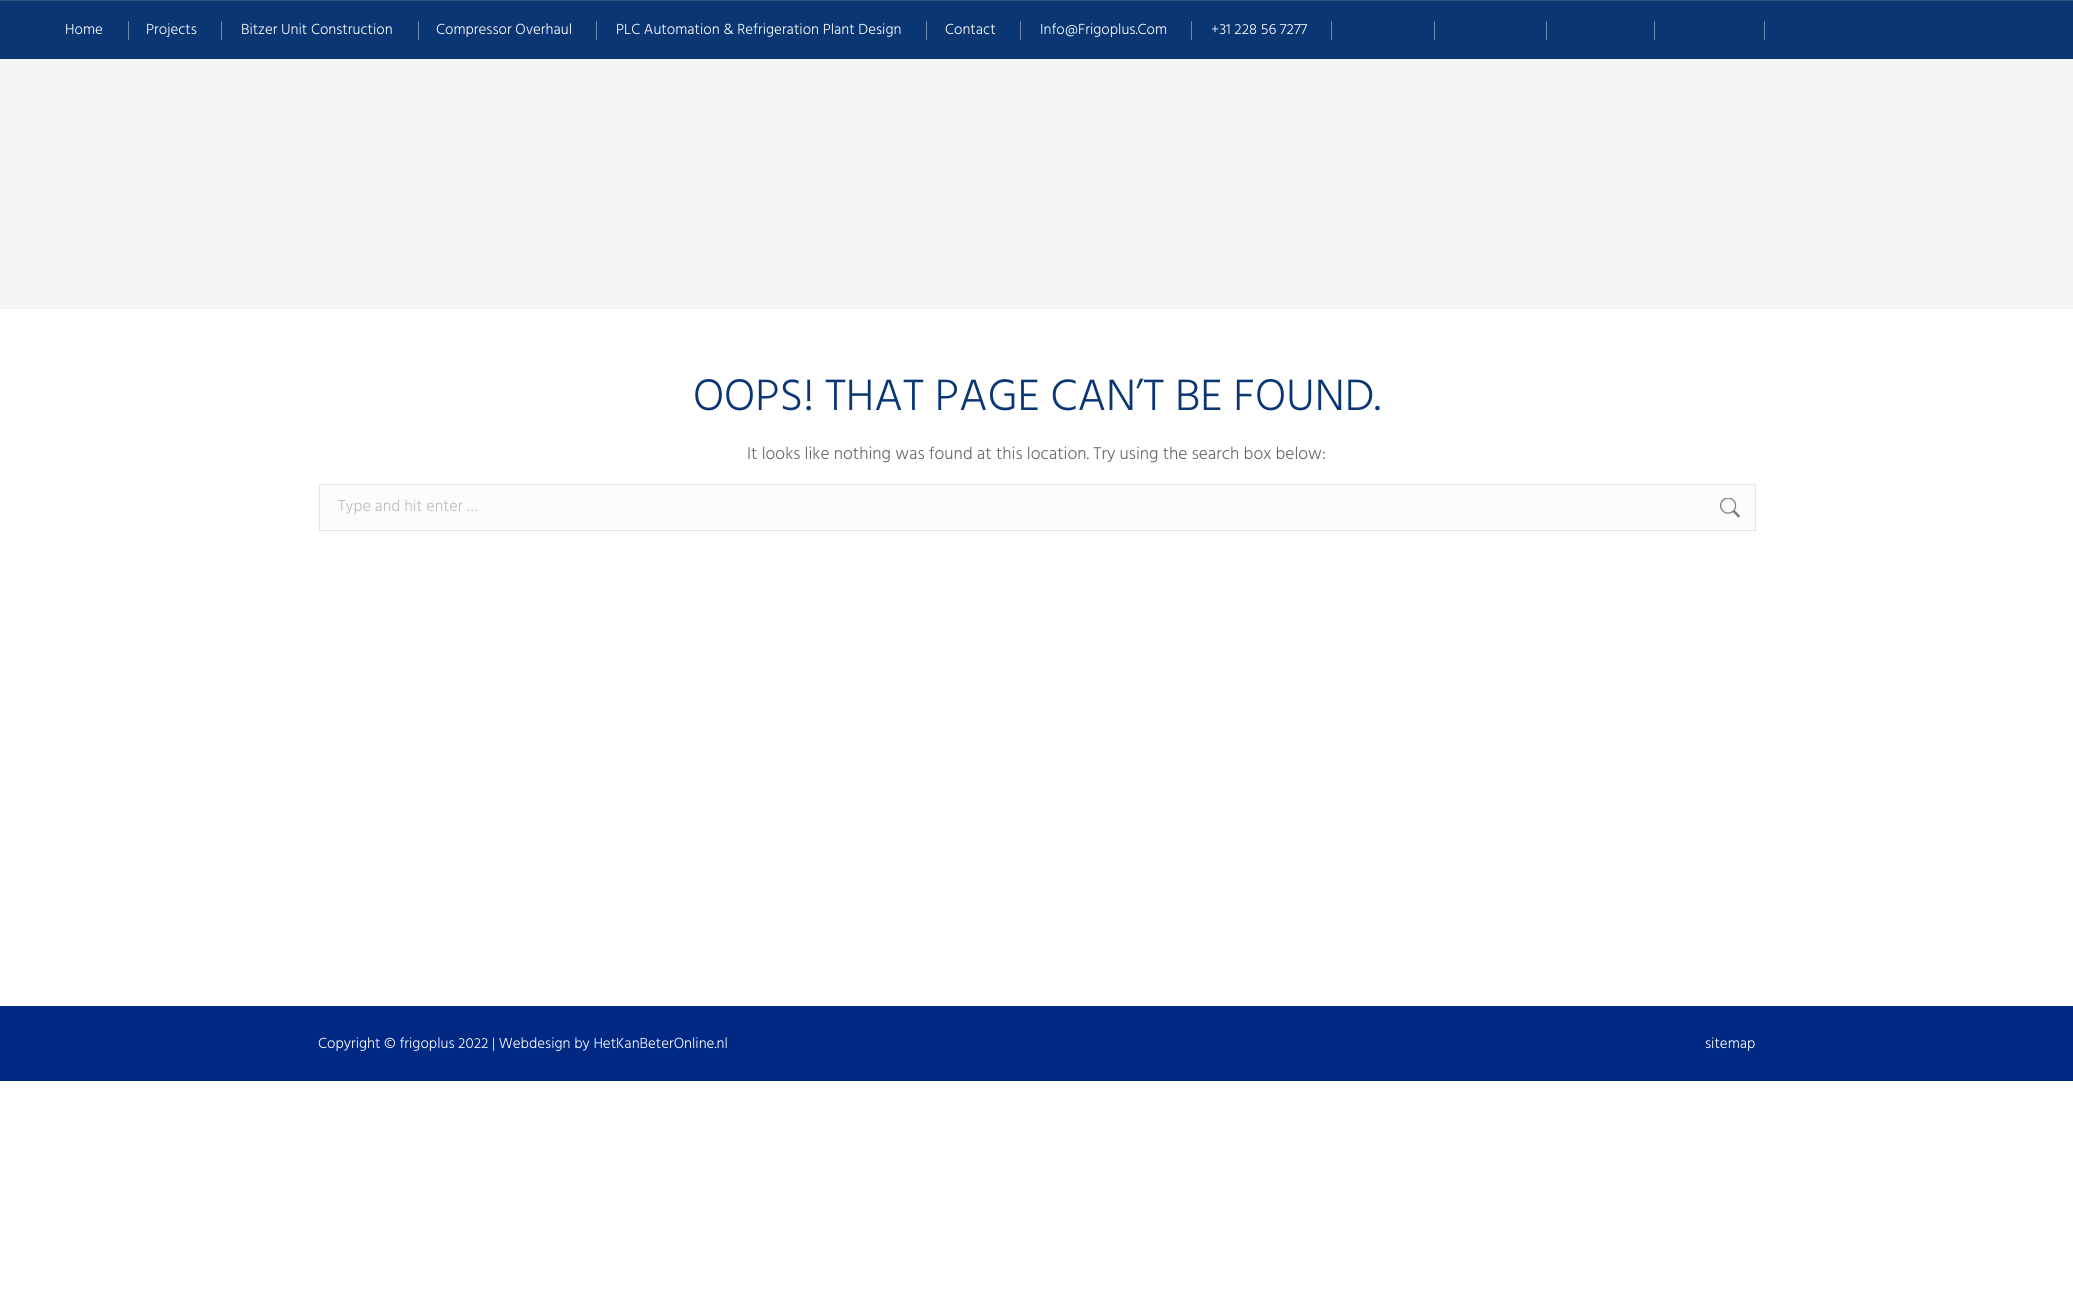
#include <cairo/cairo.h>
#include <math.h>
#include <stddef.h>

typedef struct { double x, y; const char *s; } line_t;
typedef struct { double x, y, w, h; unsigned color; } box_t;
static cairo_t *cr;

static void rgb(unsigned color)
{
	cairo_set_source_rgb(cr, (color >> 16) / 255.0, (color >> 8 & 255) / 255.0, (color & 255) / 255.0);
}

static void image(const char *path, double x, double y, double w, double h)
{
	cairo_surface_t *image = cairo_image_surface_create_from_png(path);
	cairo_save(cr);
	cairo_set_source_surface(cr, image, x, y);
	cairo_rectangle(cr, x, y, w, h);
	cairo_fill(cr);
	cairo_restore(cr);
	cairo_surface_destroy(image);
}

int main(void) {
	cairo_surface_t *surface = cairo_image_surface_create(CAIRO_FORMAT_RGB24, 2073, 1297);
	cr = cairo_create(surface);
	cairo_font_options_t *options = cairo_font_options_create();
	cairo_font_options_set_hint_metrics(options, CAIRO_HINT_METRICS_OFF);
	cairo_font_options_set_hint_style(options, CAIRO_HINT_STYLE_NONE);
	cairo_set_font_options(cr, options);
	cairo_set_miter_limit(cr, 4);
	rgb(0xffffff);
	cairo_paint(cr);
	{
		static const box_t items[] = {
			{0, 1, 2073, 58, 0x0a3774},
			{0, 0, 2073, 1, 0x315381},
			{128, 21, 1, 19, 0x6c87ac},
			{221, 21, 1, 19, 0x6c87ac},
			{418, 21, 1, 19, 0x6c87ac},
			{596, 21, 1, 19, 0x6c87ac},
			{926, 21, 1, 19, 0x6c87ac},
			{1020, 21, 1, 19, 0x6c87ac},
			{1191, 21, 1, 19, 0x6c87ac},
			{1331, 21, 1, 19, 0x6c87ac},
			{1434, 21, 1, 19, 0x6c87ac},
			{1546, 21, 1, 19, 0x6c87ac},
			{1654, 21, 1, 19, 0x6c87ac},
			{1764, 21, 1, 19, 0x6c87ac},
			{0, 59, 2073, 250, 0xf4f4f4},
		};
		for (size_t i = 0; i < sizeof items / sizeof *items; i++) {
			rgb(items[i].color);
			cairo_rectangle(cr, items[i].x, items[i].y, items[i].w, items[i].h);
			cairo_fill(cr);
		}
	}
	rgb(0xfcfcfc);
	cairo_rectangle(cr, 319.5, 484.5, 1436, 46);
	cairo_fill_preserve(cr);
	rgb(0xe4e5e7);
	cairo_set_line_width(cr, 1);
	cairo_stroke(cr);
	image("img/1.png", 1720, 498, 20, 20);
	rgb(0x002984);
	cairo_rectangle(cr, 0, 1006, 2073, 75);
	cairo_fill(cr);
	cairo_select_font_face(cr, "Hind Light", CAIRO_FONT_SLANT_NORMAL, CAIRO_FONT_WEIGHT_NORMAL);
	cairo_set_font_size(cr, 15);
	rgb(0xffffff);
	{
		static const line_t items[] = {
			{65, 34, "Home"},
			{146, 34, "Projects"},
			{241, 34, "Bitzer Unit Construction"},
			{436, 34, "Compressor Overhaul"},
			{616, 34, "PLC Automation & Refrigeration Plant Design"},
			{945, 34, "Contact"},
			{1040, 34, "Info@Frigoplus.Com"},
			{1211, 34, "+31 228 56 7277"},
		};
		for (size_t i = 0; i < sizeof items / sizeof *items; i++) {
			cairo_move_to(cr, items[i].x, items[i].y);
			cairo_show_text(cr, items[i].s);
		}
	}
	cairo_set_font_size(cr, 45);
	rgb(0x0a3774);
	cairo_move_to(cr, 693, 410);
	cairo_show_text(cr, "OOPS! THAT PAGE CAN’T BE FOUND.");
	cairo_set_font_size(cr, 17.5);
	rgb(0x686868);
	cairo_move_to(cr, 747, 459);
	cairo_show_text(cr, "It looks like nothing was found at this location. Try using the search box below:");
	cairo_set_font_size(cr, 16.25);
	rgb(0xbabdc1);
	cairo_move_to(cr, 338, 511);
	cairo_show_text(cr, "Type and hit enter …");
	cairo_set_font_size(cr, 15);
	rgb(0xffffff);
	cairo_move_to(cr, 318, 1048);
	cairo_show_text(cr, "Copyright © frigoplus 2022 | Webdesign by HetKanBeterOnline.nl");
	cairo_move_to(cr, 1705, 1048);
	cairo_show_text(cr, "sitemap");
	cairo_surface_write_to_png(surface, "page.png");
	cairo_font_options_destroy(options);
	cairo_destroy(cr);
	cairo_surface_destroy(surface);
	return 0;
}
